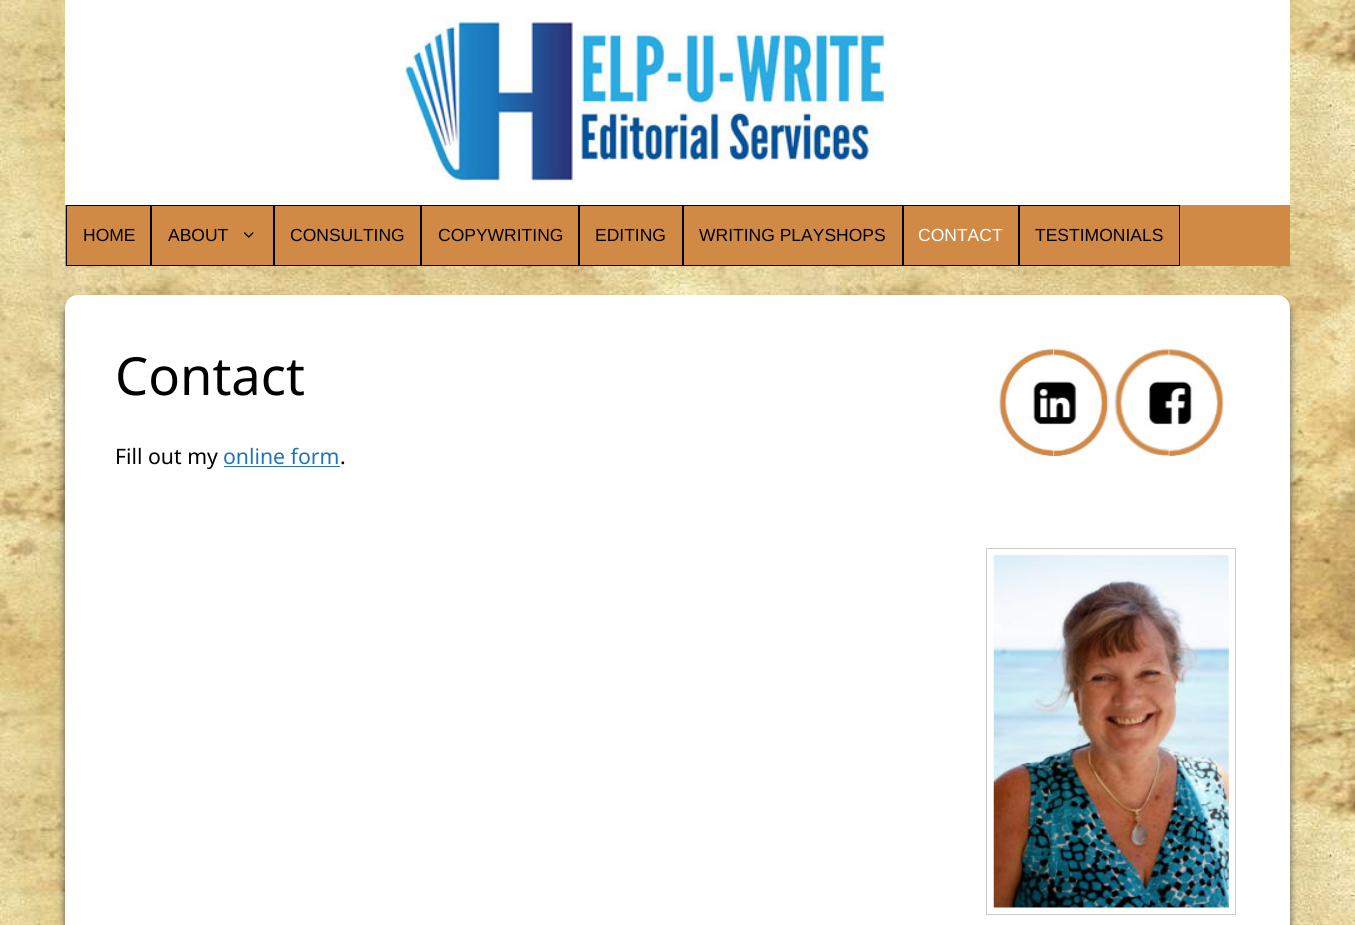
#include <cairo/cairo.h>
#include <math.h>
#include <stddef.h>

typedef struct { double x, y; const char *s; } line_t;
static cairo_t *cr;

static void rgb(unsigned color)
{
	cairo_set_source_rgb(cr, (color >> 16) / 255.0, (color >> 8 & 255) / 255.0, (color & 255) / 255.0);
}

static void rrect(double x, double y, double w, double h, double r)
{
	cairo_new_sub_path(cr);
	cairo_arc(cr, x + w - r, y + h - r, r, 0, M_PI / 2);
	cairo_arc(cr, x + r, y + h - r, r, M_PI / 2, M_PI);
	cairo_arc(cr, x + r, y + r, r, M_PI, 1.5 * M_PI);
	cairo_arc(cr, x + w - r, y + r, r, 1.5 * M_PI, 2 * M_PI);
	cairo_close_path(cr);
}

static void soft_shadow(double x, double y, double w, double h, double r, double blur, double alpha)
{
	cairo_push_group_with_content(cr, CAIRO_CONTENT_ALPHA);
	cairo_set_operator(cr, CAIRO_OPERATOR_SOURCE);
	for (int i = 15; i >= -15 && fmin(w, h) + blur * i / 3 > 0; i -= 2) {
		double e = blur * i / 6;
		cairo_set_source_rgba(cr, 0, 0, 0, alpha * erfc((i - 1) / 8.5) / 2);
		rrect(x - e, y - e, w + 2 * e, h + 2 * e, fmax(0, fmin(r + e + blur * .6, fmin(w, h) / 2 + e)));
		cairo_fill(cr);
	}
	cairo_pattern_t *soft = cairo_pop_group(cr);
	cairo_mask(cr, soft);
	cairo_pattern_destroy(soft);
}

static void image(const char *path, double x, double y, double w, double h)
{
	cairo_surface_t *image = cairo_image_surface_create_from_png(path);
	cairo_save(cr);
	cairo_set_source_surface(cr, image, x, y);
	cairo_rectangle(cr, x, y, w, h);
	cairo_fill(cr);
	cairo_restore(cr);
	cairo_surface_destroy(image);
}

int main(void) {
	cairo_surface_t *surface = cairo_image_surface_create(CAIRO_FORMAT_RGB24, 1355, 925);
	cr = cairo_create(surface);
	cairo_font_options_t *options = cairo_font_options_create();
	cairo_font_options_set_hint_metrics(options, CAIRO_HINT_METRICS_OFF);
	cairo_font_options_set_hint_style(options, CAIRO_HINT_STYLE_NONE);
	cairo_set_font_options(cr, options);
	cairo_set_miter_limit(cr, 4);
	rgb(0xffffff);
	cairo_paint(cr);
	image("img/1.png", 0, 0, 1355, 925);
	rgb(0xffffff);
	cairo_rectangle(cr, 65, 0, 1225, 205);
	cairo_fill(cr);
	image("img/2.png", 405, 20, 481, 161);
	rgb(0xd18946);
	cairo_rectangle(cr, 65, 205, 1225, 61);
	cairo_fill(cr);
	cairo_rectangle(cr, 66.5, 205.5, 84, 60);
	rgb(0x000000);
	cairo_set_line_width(cr, 1);
	cairo_stroke(cr);
	cairo_rectangle(cr, 151.5, 205.5, 122, 60);
	cairo_stroke(cr);
	image("img/3.png", 244, 232, 10, 6);
	cairo_rectangle(cr, 274.5, 205.5, 146, 60);
	cairo_stroke(cr);
	cairo_rectangle(cr, 421.5, 205.5, 157, 60);
	cairo_stroke(cr);
	cairo_rectangle(cr, 579.5, 205.5, 103, 60);
	cairo_stroke(cr);
	cairo_rectangle(cr, 683.5, 205.5, 219, 60);
	cairo_stroke(cr);
	cairo_rectangle(cr, 903.5, 205.5, 115, 60);
	cairo_stroke(cr);
	cairo_rectangle(cr, 1019.5, 205.5, 160, 60);
	cairo_stroke(cr);
	rgb(0x555555);
	soft_shadow(65, 303, 1225, 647, 13, 4, 1);
	rgb(0xffffff);
	rrect(65, 295, 1225, 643, 13);
	cairo_fill(cr);
	rgb(0x1e73be);
	cairo_rectangle(cr, 224, 466, 116, 1);
	cairo_fill(cr);
	image("img/4.png", 994, 344, 117, 113);
	image("img/5.png", 1111, 344, 113, 113);
	cairo_rectangle(cr, 986.5, 548.5, 249, 366);
	rgb(0xcccccc);
	cairo_stroke(cr);
	image("img/6.png", 993, 555, 236, 353);
	cairo_select_font_face(cr, "Liberation Sans", CAIRO_FONT_SLANT_NORMAL, CAIRO_FONT_WEIGHT_NORMAL);
	cairo_set_font_size(cr, 17.5);
	rgb(0x000000);
	{
		static const line_t items[] = {
			{83, 241, "HOME"},
			{168, 241, "ABOUT"},
			{290, 241, "CONSULTING"},
			{438, 241, "COPYWRITING"},
			{595, 241, "EDITING"},
			{699, 241, "WRITING PLAYSHOPS"},
		};
		for (size_t i = 0; i < sizeof items / sizeof *items; i++) {
			cairo_move_to(cr, items[i].x, items[i].y);
			cairo_show_text(cr, items[i].s);
		}
	}
	rgb(0xffffff);
	cairo_move_to(cr, 918, 241);
	cairo_show_text(cr, "CONTACT");
	rgb(0x000000);
	cairo_move_to(cr, 1035, 241);
	cairo_show_text(cr, "TESTIMONIALS");
	cairo_select_font_face(cr, "Noto Sans", CAIRO_FONT_SLANT_NORMAL, CAIRO_FONT_WEIGHT_NORMAL);
	cairo_set_font_size(cr, 52.5);
	cairo_move_to(cr, 115, 395);
	cairo_show_text(cr, "Contact");
	cairo_set_font_size(cr, 21.25);
	cairo_move_to(cr, 115, 464);
	cairo_show_text(cr, "Fill out my");
	rgb(0x1e73be);
	cairo_move_to(cr, 223, 464);
	cairo_show_text(cr, "online form");
	rgb(0x000000);
	cairo_move_to(cr, 340, 464);
	cairo_show_text(cr, ".");
	cairo_surface_write_to_png(surface, "page.png");
	cairo_font_options_destroy(options);
	cairo_destroy(cr);
	cairo_surface_destroy(surface);
	return 0;
}
